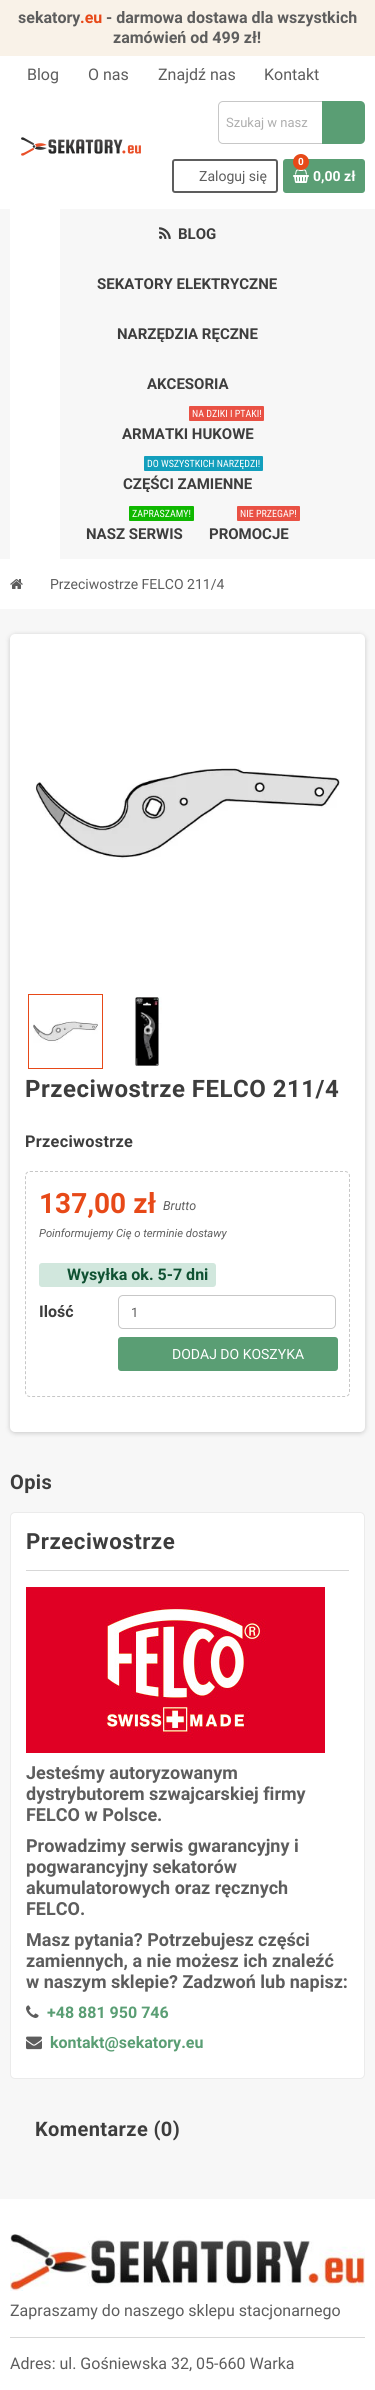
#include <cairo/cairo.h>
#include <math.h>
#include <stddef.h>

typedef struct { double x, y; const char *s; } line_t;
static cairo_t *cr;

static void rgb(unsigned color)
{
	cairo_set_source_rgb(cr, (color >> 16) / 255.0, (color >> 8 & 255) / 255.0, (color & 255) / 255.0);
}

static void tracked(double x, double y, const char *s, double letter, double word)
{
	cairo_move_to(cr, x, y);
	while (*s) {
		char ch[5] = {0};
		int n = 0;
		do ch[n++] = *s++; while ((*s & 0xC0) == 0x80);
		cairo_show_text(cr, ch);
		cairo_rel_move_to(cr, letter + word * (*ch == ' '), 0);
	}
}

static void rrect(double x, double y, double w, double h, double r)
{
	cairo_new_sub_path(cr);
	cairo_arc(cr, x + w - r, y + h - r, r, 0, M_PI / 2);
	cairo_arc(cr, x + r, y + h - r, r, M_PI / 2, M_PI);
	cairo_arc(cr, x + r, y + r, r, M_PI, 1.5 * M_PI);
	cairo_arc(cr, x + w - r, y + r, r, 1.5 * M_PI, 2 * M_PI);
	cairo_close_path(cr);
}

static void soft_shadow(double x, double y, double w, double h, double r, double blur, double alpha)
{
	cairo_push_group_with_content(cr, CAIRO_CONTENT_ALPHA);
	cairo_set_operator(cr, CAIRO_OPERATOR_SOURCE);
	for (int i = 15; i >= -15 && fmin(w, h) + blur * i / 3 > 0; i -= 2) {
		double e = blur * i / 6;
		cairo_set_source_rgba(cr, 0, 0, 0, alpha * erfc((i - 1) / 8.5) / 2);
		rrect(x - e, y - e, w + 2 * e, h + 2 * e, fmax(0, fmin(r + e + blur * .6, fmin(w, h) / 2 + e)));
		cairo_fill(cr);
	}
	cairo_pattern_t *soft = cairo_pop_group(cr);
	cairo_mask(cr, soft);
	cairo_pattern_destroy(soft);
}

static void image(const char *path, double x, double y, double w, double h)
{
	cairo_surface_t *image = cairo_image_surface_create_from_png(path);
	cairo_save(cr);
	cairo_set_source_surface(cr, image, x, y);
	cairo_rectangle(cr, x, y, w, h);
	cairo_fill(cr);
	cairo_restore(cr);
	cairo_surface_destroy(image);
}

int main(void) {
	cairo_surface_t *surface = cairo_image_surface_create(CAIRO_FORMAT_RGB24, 375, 2390);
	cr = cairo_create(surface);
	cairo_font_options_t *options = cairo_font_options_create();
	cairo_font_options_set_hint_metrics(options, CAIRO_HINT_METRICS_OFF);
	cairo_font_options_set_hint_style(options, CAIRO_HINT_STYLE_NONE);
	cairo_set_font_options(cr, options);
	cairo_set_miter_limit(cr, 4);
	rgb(0xffffff);
	cairo_paint(cr);
	rgb(0xf9f2e8);
	cairo_rectangle(cr, 0, 0, 375, 56);
	cairo_fill(cr);
	image("img/1.png", 21, 137, 120, 19);
	rrect(218.5, 101.5, 145, 42, 4.5);
	rgb(0xc7c7c7);
	cairo_set_line_width(cr, 1);
	cairo_stroke(cr);
	rgb(0x5a9e74);
	cairo_new_path(cr);
	cairo_move_to(cr, 322, 101);
	cairo_line_to(cr, 360, 101);
	cairo_curve_to(cr, 363, 101, 365, 103, 365, 106);
	cairo_line_to(cr, 365, 139);
	cairo_curve_to(cr, 365, 142, 363, 144, 360, 144);
	cairo_line_to(cr, 322, 144);
	cairo_close_path(cr);
	cairo_fill(cr);
	rrect(173, 160, 104, 32, 2);
	rgb(0x5d5d5d);
	cairo_set_line_width(cr, 2);
	cairo_stroke(cr);
	rgb(0x5a9e74);
	rrect(283, 159, 82, 34, 3);
	cairo_fill(cr);
	image("img/2.png", 293, 169, 16, 14);
	rgb(0xe74918);
	cairo_arc(cr, 301, 162, 8, 0, 2 * M_PI);
	cairo_fill(cr);
	rgb(0xf7f7f7);
	cairo_rectangle(cr, 0, 209, 375, 350);
	cairo_fill(cr);
	rgb(0xffffff);
	cairo_rectangle(cr, 10, 209, 50, 350);
	cairo_fill(cr);
	image("img/3.png", 159, 227, 12, 12);
	rgb(0xe95144);
	rrect(189, 406, 75, 15, 1);
	cairo_fill(cr);
	rgb(0x139fbd);
	rrect(144, 456, 119, 15, 1);
	cairo_fill(cr);
	rgb(0x0fb800);
	rrect(129, 506, 65, 15, 1);
	cairo_fill(cr);
	rgb(0xe95144);
	rrect(237, 506, 63, 15, 1);
	cairo_fill(cr);
	rgb(0xf7f7f7);
	cairo_rectangle(cr, 0, 609, 375, 1590);
	cairo_fill(cr);
	image("img/4.png", 10, 579, 13, 10);
	rgb(0x000000);
	soft_shadow(10, 635, 355, 798, 5, 2.5, 0.2);
	rgb(0xffffff);
	rrect(10, 634, 355, 798, 5);
	cairo_fill(cr);
	image("img/5.png", 35, 768, 305, 92);
	cairo_rectangle(cr, 28.5, 994.5, 74, 74);
	rgb(0xe74918);
	cairo_set_line_width(cr, 1);
	cairo_stroke(cr);
	image("img/6.png", 33, 1021, 65, 22);
	image("img/7.png", 134, 997, 28, 69);
	cairo_new_path(cr);
	cairo_move_to(cr, 30, 1171.5);
	cairo_line_to(cr, 345, 1171.5);
	cairo_curve_to(cr, 347.5, 1171.5, 349.5, 1173.5, 349.5, 1176);
	cairo_line_to(cr, 349.5, 1392);
	cairo_curve_to(cr, 349.5, 1394.5, 347.5, 1396.5, 345, 1396.5);
	cairo_line_to(cr, 30, 1396.5);
	cairo_curve_to(cr, 27.5, 1396.5, 25.5, 1394.5, 25.5, 1392);
	cairo_line_to(cr, 25.5, 1176);
	cairo_curve_to(cr, 25.5, 1173.5, 27.5, 1171.5, 30, 1171.5);
	cairo_close_path(cr);
	rgb(0xc7c7c7);
	cairo_set_dash(cr, (double[]){3, 2}, 2, 0);
	cairo_stroke(cr);
	rgb(0xd1e7dd);
	rrect(39, 1263, 177, 24, 3);
	cairo_fill(cr);
	rrect(118.5, 1295.5, 217, 33, 4.5);
	rgb(0xc7c7c7);
	cairo_set_dash(cr, NULL, 0, 0);
	cairo_stroke(cr);
	rgb(0x5a9e74);
	rrect(118, 1337, 220, 34, 3);
	cairo_fill(cr);
	rgb(0xffffff);
	rrect(10.5, 1512.5, 354, 566, 4.5);
	cairo_fill_preserve(cr);
	rgb(0xebebeb);
	cairo_stroke(cr);
	rgb(0xd7d7d7);
	cairo_rectangle(cr, 26, 1570, 323, 1);
	cairo_fill(cr);
	image("img/8.png", 26, 1587, 299, 166);
	image("img/9.png", 26, 2005, 13, 13);
	image("img/10.png", 26, 2036, 16, 14);
	image("img/11.png", 10, 2234, 355, 57);
	cairo_rectangle(cr, 10, 2337, 355, 1);
	cairo_fill(cr);
	cairo_select_font_face(cr, "Roboto", CAIRO_FONT_SLANT_NORMAL, CAIRO_FONT_WEIGHT_BOLD);
	cairo_set_font_size(cr, 16);
	rgb(0x5d5d5d);
	cairo_move_to(cr, 18, 23);
	cairo_show_text(cr, "sekatory");
	rgb(0xe74918);
	cairo_move_to(cr, 80, 23);
	cairo_show_text(cr, ".eu");
	rgb(0x5d5d5d);
	cairo_move_to(cr, 106, 23);
	cairo_show_text(cr, "- darmowa dostawa dla wszystkich");
	cairo_move_to(cr, 113, 43);
	cairo_show_text(cr, "zamówień od 499 zł!");
	cairo_select_font_face(cr, "Roboto", CAIRO_FONT_SLANT_NORMAL, CAIRO_FONT_WEIGHT_NORMAL);
	{
		static const line_t items[] = {
			{27, 80, "Blog"},
			{88, 80, "O nas"},
			{158, 80, "Znajdź nas"},
			{264, 80, "Kontakt"},
		};
		for (size_t i = 0; i < sizeof items / sizeof *items; i++) {
			cairo_move_to(cr, items[i].x, items[i].y);
			cairo_show_text(cr, items[i].s);
		}
	}
	cairo_set_font_size(cr, 13);
	rgb(0xaeaeae);
	cairo_move_to(cr, 226, 127);
	cairo_show_text(cr, "Szukaj w nasz");
	cairo_set_font_size(cr, 14);
	rgb(0x5d5d5d);
	cairo_move_to(cr, 199, 181);
	cairo_show_text(cr, "Zaloguj się");
	cairo_select_font_face(cr, "Roboto", CAIRO_FONT_SLANT_NORMAL, CAIRO_FONT_WEIGHT_BOLD);
	cairo_set_font_size(cr, 10);
	rgb(0xffffff);
	cairo_move_to(cr, 298, 165);
	cairo_show_text(cr, "0");
	cairo_set_font_size(cr, 14);
	cairo_move_to(cr, 313, 181);
	cairo_show_text(cr, "0,00 zł");
	cairo_select_font_face(cr, "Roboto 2", CAIRO_FONT_SLANT_NORMAL, CAIRO_FONT_WEIGHT_BOLD);
	cairo_set_font_size(cr, 15);
	rgb(0x3d3d3d);
	{
		static const line_t items[] = {
			{178, 239, "BLOG"},
			{97, 289, "SEKATORY ELEKTRYCZNE"},
			{117, 339, "NARZĘDZIA RĘCZNE"},
			{147, 389, "AKCESORIA"},
		};
		for (size_t i = 0; i < sizeof items / sizeof *items; i++) {
			cairo_move_to(cr, items[i].x, items[i].y);
			cairo_show_text(cr, items[i].s);
		}
	}
	cairo_select_font_face(cr, "Roboto Condensed", CAIRO_FONT_SLANT_NORMAL, CAIRO_FONT_WEIGHT_NORMAL);
	cairo_set_font_size(cr, 10);
	rgb(0xffffff);
	cairo_move_to(cr, 192, 417);
	cairo_show_text(cr, "NA DZIKI I PTAKI!");
	cairo_select_font_face(cr, "Roboto 2", CAIRO_FONT_SLANT_NORMAL, CAIRO_FONT_WEIGHT_BOLD);
	cairo_set_font_size(cr, 15);
	rgb(0x3d3d3d);
	cairo_move_to(cr, 122, 439);
	cairo_show_text(cr, "ARMATKI HUKOWE");
	cairo_select_font_face(cr, "Roboto Condensed", CAIRO_FONT_SLANT_NORMAL, CAIRO_FONT_WEIGHT_NORMAL);
	cairo_set_font_size(cr, 10);
	rgb(0xffffff);
	cairo_move_to(cr, 147, 467);
	cairo_show_text(cr, "DO WSZYSTKICH NARZĘDZI!");
	cairo_select_font_face(cr, "Roboto 2", CAIRO_FONT_SLANT_NORMAL, CAIRO_FONT_WEIGHT_BOLD);
	cairo_set_font_size(cr, 15);
	rgb(0x3d3d3d);
	cairo_move_to(cr, 123, 489);
	cairo_show_text(cr, "CZĘŚCI ZAMIENNE");
	cairo_select_font_face(cr, "Roboto Condensed", CAIRO_FONT_SLANT_NORMAL, CAIRO_FONT_WEIGHT_NORMAL);
	cairo_set_font_size(cr, 10);
	rgb(0xffffff);
	cairo_move_to(cr, 132, 517);
	cairo_show_text(cr, "ZAPRASZAMY!");
	cairo_select_font_face(cr, "Roboto 2", CAIRO_FONT_SLANT_NORMAL, CAIRO_FONT_WEIGHT_BOLD);
	cairo_set_font_size(cr, 15);
	rgb(0x3d3d3d);
	cairo_move_to(cr, 86, 539);
	cairo_show_text(cr, "NASZ SERWIS");
	cairo_select_font_face(cr, "Roboto Condensed", CAIRO_FONT_SLANT_NORMAL, CAIRO_FONT_WEIGHT_NORMAL);
	cairo_set_font_size(cr, 10);
	rgb(0xffffff);
	cairo_move_to(cr, 240, 517);
	cairo_show_text(cr, "NIE PRZEGAP!");
	cairo_select_font_face(cr, "Roboto 2", CAIRO_FONT_SLANT_NORMAL, CAIRO_FONT_WEIGHT_BOLD);
	cairo_set_font_size(cr, 15);
	rgb(0x3d3d3d);
	cairo_move_to(cr, 209, 539);
	cairo_show_text(cr, "PROMOCJE");
	cairo_select_font_face(cr, "Roboto", CAIRO_FONT_SLANT_NORMAL, CAIRO_FONT_WEIGHT_NORMAL);
	cairo_set_font_size(cr, 14);
	rgb(0x5d5d5d);
	cairo_move_to(cr, 50, 589);
	cairo_show_text(cr, "Przeciwostrze FELCO 211/4");
	cairo_select_font_face(cr, "Roboto 2", CAIRO_FONT_SLANT_NORMAL, CAIRO_FONT_WEIGHT_BOLD);
	cairo_set_font_size(cr, 24);
	rgb(0x3d3d3d);
	tracked(25, 1097, "Przeciwostrze FELCO 211/4", 0.5, 0);
	cairo_set_font_size(cr, 16.25);
	tracked(25, 1147, "Przeciwostrze", 0.3, 0);
	cairo_select_font_face(cr, "Roboto", CAIRO_FONT_SLANT_NORMAL, CAIRO_FONT_WEIGHT_BOLD);
	cairo_set_font_size(cr, 28);
	rgb(0xe74918);
	cairo_move_to(cr, 39, 1213);
	cairo_show_text(cr, "137,00 zł");
	cairo_select_font_face(cr, "Roboto", CAIRO_FONT_SLANT_ITALIC, CAIRO_FONT_WEIGHT_NORMAL);
	cairo_set_font_size(cr, 12.5);
	rgb(0x5d5d5d);
	cairo_move_to(cr, 163, 1210);
	cairo_show_text(cr, "Brutto");
	cairo_set_font_size(cr, 11.25);
	cairo_move_to(cr, 39, 1237);
	cairo_show_text(cr, "Poinformujemy Cię o terminie dostawy");
	cairo_select_font_face(cr, "Roboto", CAIRO_FONT_SLANT_NORMAL, CAIRO_FONT_WEIGHT_BOLD);
	cairo_set_font_size(cr, 16);
	rgb(0x0f5132);
	cairo_move_to(cr, 67, 1280);
	cairo_show_text(cr, "Wysyłka ok. 5-7 dni");
	rgb(0x3d3d3d);
	cairo_move_to(cr, 39, 1317);
	cairo_show_text(cr, "Ilość");
	cairo_select_font_face(cr, "Roboto", CAIRO_FONT_SLANT_NORMAL, CAIRO_FONT_WEIGHT_NORMAL);
	cairo_set_font_size(cr, 13);
	rgb(0x5d5d5d);
	cairo_move_to(cr, 131, 1317);
	cairo_show_text(cr, "1");
	cairo_set_font_size(cr, 14);
	rgb(0xffffff);
	cairo_move_to(cr, 172, 1359);
	cairo_show_text(cr, "DODAJ DO KOSZYKA");
	cairo_select_font_face(cr, "Roboto 2", CAIRO_FONT_SLANT_NORMAL, CAIRO_FONT_WEIGHT_BOLD);
	cairo_set_font_size(cr, 20);
	rgb(0x3d3d3d);
	tracked(10, 1489, "Opis", 0.4, 0);
	cairo_set_font_size(cr, 22.25);
	tracked(26, 1549, "Przeciwostrze", 0.5, 0);
	cairo_select_font_face(cr, "Roboto", CAIRO_FONT_SLANT_NORMAL, CAIRO_FONT_WEIGHT_BOLD);
	cairo_set_font_size(cr, 18);
	rgb(0x5d5d5d);
	{
		static const line_t items[] = {
			{26, 1779, "Jesteśmy autoryzowanym"},
			{26, 1800, "dystrybutorem szwajcarskiej firmy"},
			{26, 1821, "FELCO w Polsce."},
			{26, 1852, "Prowadzimy serwis gwarancyjny i"},
			{26, 1873, "pogwarancyjny sekatorów"},
			{26, 1894, "akumulatorowych oraz ręcznych"},
			{26, 1915, "FELCO."},
			{26, 1946, "Masz pytania? Potrzebujesz części"},
			{26, 1967, "zamiennych, a nie możesz ich znaleźć"},
			{26, 1988, "w naszym sklepie? Zadzwoń lub napisz:"},
		};
		for (size_t i = 0; i < sizeof items / sizeof *items; i++) {
			cairo_move_to(cr, items[i].x, items[i].y);
			cairo_show_text(cr, items[i].s);
		}
	}
	cairo_set_font_size(cr, 16);
	rgb(0x5a9e74);
	cairo_move_to(cr, 47, 2018);
	cairo_show_text(cr, "+48 881 950 746");
	cairo_move_to(cr, 50, 2048);
	cairo_show_text(cr, "kontakt@sekatory.eu");
	cairo_select_font_face(cr, "Roboto 2", CAIRO_FONT_SLANT_NORMAL, CAIRO_FONT_WEIGHT_BOLD);
	cairo_set_font_size(cr, 20);
	rgb(0x3d3d3d);
	tracked(35, 2136, "Komentarze (0)", 0.4, 0);
	cairo_select_font_face(cr, "Roboto", CAIRO_FONT_SLANT_NORMAL, CAIRO_FONT_WEIGHT_NORMAL);
	cairo_set_font_size(cr, 16);
	rgb(0x5d5d5d);
	cairo_move_to(cr, 10, 2316);
	cairo_show_text(cr, "Zapraszamy do naszego sklepu stacjonarnego");
	cairo_move_to(cr, 10, 2369);
	cairo_show_text(cr, "Adres: ul. Gośniewska 32, 05-660 Warka");
	cairo_surface_write_to_png(surface, "page.png");
	cairo_font_options_destroy(options);
	cairo_destroy(cr);
	cairo_surface_destroy(surface);
	return 0;
}
